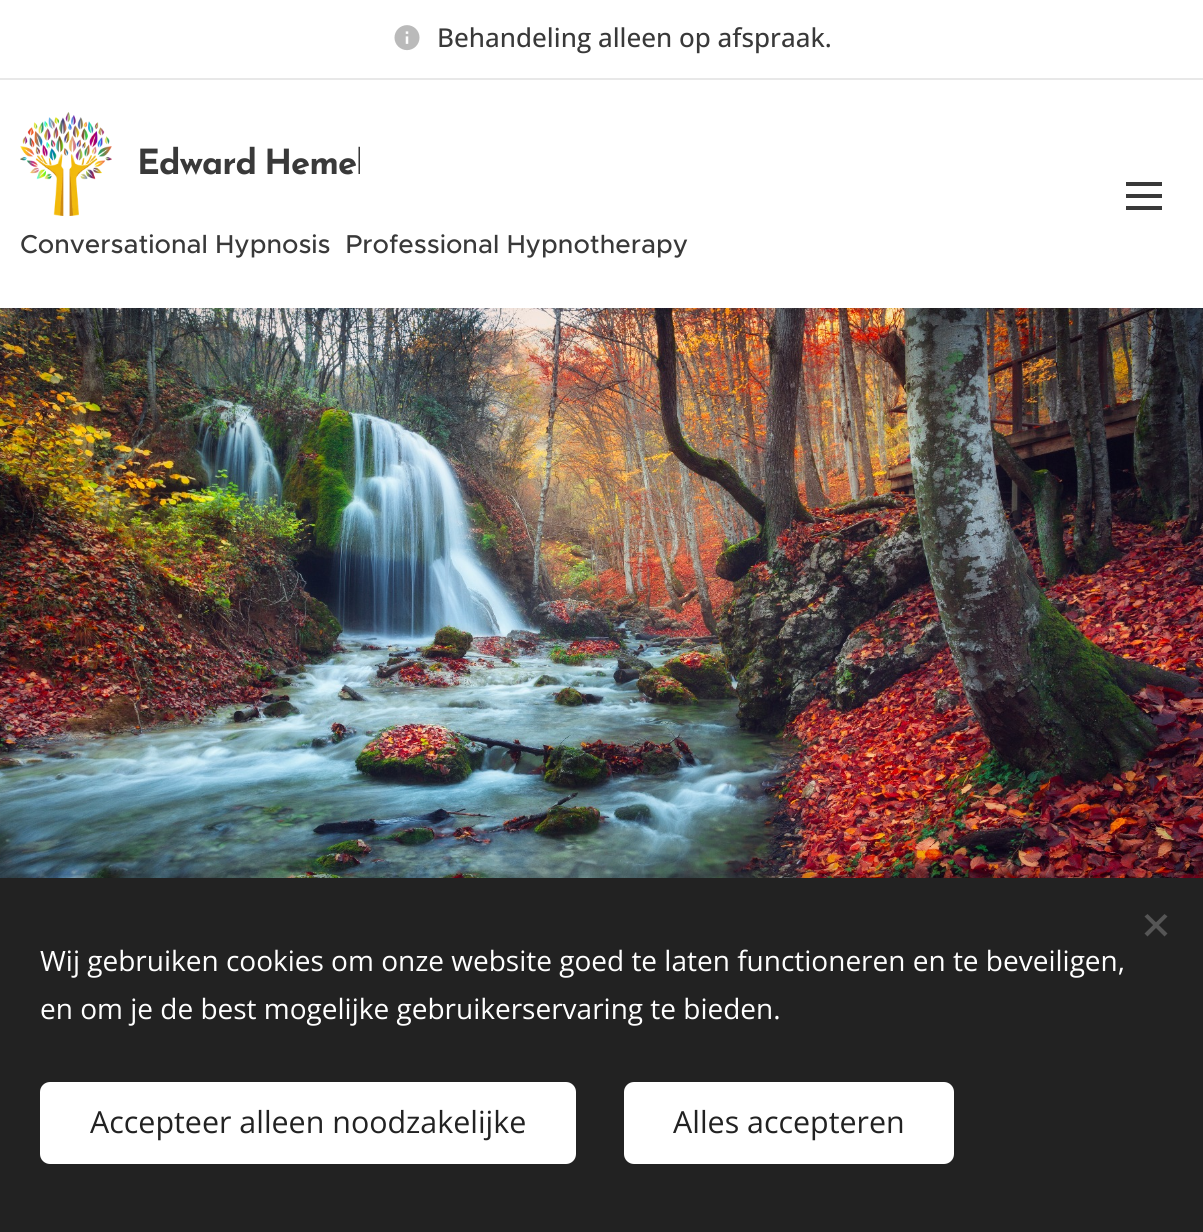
#include <cairo/cairo.h>
#include <math.h>
#include <stddef.h>

typedef struct { double x, y, w, h; unsigned color; } box_t;
static cairo_t *cr;

static void rgb(unsigned color)
{
	cairo_set_source_rgb(cr, (color >> 16) / 255.0, (color >> 8 & 255) / 255.0, (color & 255) / 255.0);
}

static void tracked(double x, double y, const char *s, double letter, double word)
{
	cairo_move_to(cr, x, y);
	while (*s) {
		char ch[5] = {0};
		int n = 0;
		do ch[n++] = *s++; while ((*s & 0xC0) == 0x80);
		cairo_show_text(cr, ch);
		cairo_rel_move_to(cr, letter + word * (*ch == ' '), 0);
	}
}

static void rrect(double x, double y, double w, double h, double r)
{
	cairo_new_sub_path(cr);
	cairo_arc(cr, x + w - r, y + h - r, r, 0, M_PI / 2);
	cairo_arc(cr, x + r, y + h - r, r, M_PI / 2, M_PI);
	cairo_arc(cr, x + r, y + r, r, M_PI, 1.5 * M_PI);
	cairo_arc(cr, x + w - r, y + r, r, 1.5 * M_PI, 2 * M_PI);
	cairo_close_path(cr);
}

static void soft_shadow(double x, double y, double w, double h, double r, double blur, double alpha)
{
	cairo_push_group_with_content(cr, CAIRO_CONTENT_ALPHA);
	cairo_set_operator(cr, CAIRO_OPERATOR_SOURCE);
	for (int i = 15; i >= -15 && fmin(w, h) + blur * i / 3 > 0; i -= 2) {
		double e = blur * i / 6;
		cairo_set_source_rgba(cr, 0, 0, 0, alpha * erfc((i - 1) / 8.5) / 2);
		rrect(x - e, y - e, w + 2 * e, h + 2 * e, fmax(0, fmin(r + e + blur * .6, fmin(w, h) / 2 + e)));
		cairo_fill(cr);
	}
	cairo_pattern_t *soft = cairo_pop_group(cr);
	cairo_mask(cr, soft);
	cairo_pattern_destroy(soft);
}

static void image(const char *path, double x, double y, double w, double h)
{
	cairo_surface_t *image = cairo_image_surface_create_from_png(path);
	cairo_save(cr);
	cairo_set_source_surface(cr, image, x, y);
	cairo_rectangle(cr, x, y, w, h);
	cairo_fill(cr);
	cairo_restore(cr);
	cairo_surface_destroy(image);
}

int main(void) {
	cairo_surface_t *surface = cairo_image_surface_create(CAIRO_FORMAT_RGB24, 1203, 1232);
	cr = cairo_create(surface);
	cairo_font_options_t *options = cairo_font_options_create();
	cairo_font_options_set_hint_metrics(options, CAIRO_HINT_METRICS_OFF);
	cairo_font_options_set_hint_style(options, CAIRO_HINT_STYLE_NONE);
	cairo_set_font_options(cr, options);
	cairo_set_miter_limit(cr, 4);
	rgb(0xffffff);
	cairo_paint(cr);
	image("img/1.png", 394, 25, 26, 26);
	rgb(0xe8e8e8);
	cairo_rectangle(cr, 0, 78, 1203, 2);
	cairo_fill(cr);
	image("img/2.png", 20, 112, 92, 104);
	{
		static const box_t items[] = {
			{1126, 194, 36, 4, 0x393939},
			{1126, 182, 36, 4, 0x393939},
			{1126, 206, 36, 4, 0x393939},
		};
		for (size_t i = 0; i < sizeof items / sizeof *items; i++) {
			rgb(items[i].color);
			cairo_rectangle(cr, items[i].x, items[i].y, items[i].w, items[i].h);
			cairo_fill(cr);
		}
	}
	image("img/3.png", 0, 308, 1203, 570);
	rgb(0x000000);
	soft_shadow(0, 878, 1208, 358, 0, 25, 0.33);
	rgb(0x222222);
	cairo_rectangle(cr, 0, 878, 1203, 354);
	cairo_fill(cr);
	rgb(0x555555);
	cairo_new_path(cr);
	cairo_move_to(cr, 1144.5, 933.5);
	cairo_line_to(cr, 1164.5, 914);
	cairo_line_to(cr, 1167.5, 916.5);
	cairo_line_to(cr, 1147.5, 936.5);
	cairo_close_path(cr);
	cairo_fill(cr);
	cairo_new_path(cr);
	cairo_move_to(cr, 1147.5, 914);
	cairo_line_to(cr, 1167.5, 933.5);
	cairo_line_to(cr, 1164.5, 936.5);
	cairo_line_to(cr, 1144.5, 916.5);
	cairo_close_path(cr);
	cairo_fill(cr);
	rgb(0xffffff);
	rrect(40, 1082, 536, 82, 10);
	cairo_fill(cr);
	rrect(624, 1082, 330, 82, 10);
	cairo_fill(cr);
	cairo_select_font_face(cr, "Open Sans Medium", CAIRO_FONT_SLANT_NORMAL, CAIRO_FONT_WEIGHT_NORMAL);
	cairo_set_font_size(cr, 26);
	rgb(0x393939);
	cairo_move_to(cr, 437, 47);
	cairo_show_text(cr, "Behandeling alleen op afspraak.");
	cairo_save(cr);
	cairo_rectangle(cr, 130, 136, 230, 54);
	cairo_clip(cr);
	cairo_select_font_face(cr, "Josefin Sans", CAIRO_FONT_SLANT_NORMAL, CAIRO_FONT_WEIGHT_BOLD);
	cairo_set_font_size(cr, 34.5);
	tracked(137, 174, "Edward Hemel", -1, -2);
	cairo_restore(cr);
	cairo_select_font_face(cr, "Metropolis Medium", CAIRO_FONT_SLANT_NORMAL, CAIRO_FONT_WEIGHT_NORMAL);
	cairo_move_to(cr, 20, 253);
	cairo_show_text(cr, "Conversational Hypnosis  Professional Hypnotherapy");
	cairo_select_font_face(cr, "Open Sans", CAIRO_FONT_SLANT_NORMAL, CAIRO_FONT_WEIGHT_NORMAL);
	cairo_set_font_size(cr, 28);
	rgb(0xffffff);
	cairo_move_to(cr, 40, 971);
	cairo_show_text(cr, "Wij gebruiken cookies om onze website goed te laten functioneren en te beveiligen,");
	cairo_move_to(cr, 40, 1019);
	cairo_show_text(cr, "en om je de best mogelijke gebruikerservaring te bieden.");
	cairo_set_font_size(cr, 30.4);
	rgb(0x222222);
	cairo_move_to(cr, 90, 1133);
	cairo_show_text(cr, "Accepteer alleen noodzakelijke");
	cairo_move_to(cr, 673, 1133);
	cairo_show_text(cr, "Alles accepteren");
	cairo_surface_write_to_png(surface, "page.png");
	cairo_font_options_destroy(options);
	cairo_destroy(cr);
	cairo_surface_destroy(surface);
	return 0;
}
